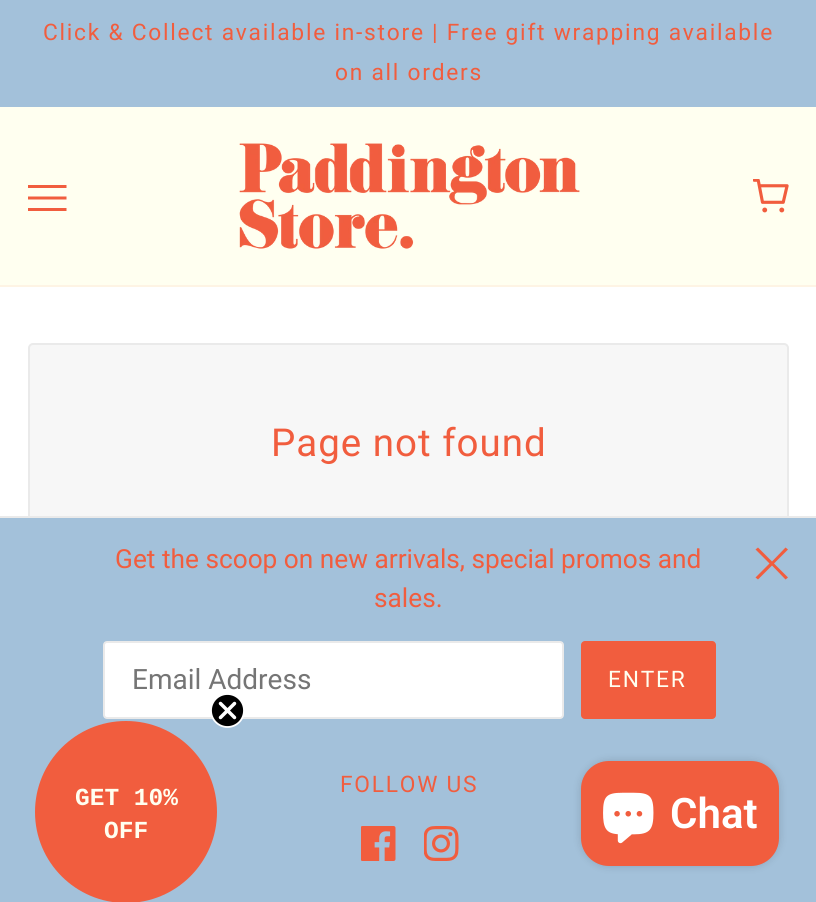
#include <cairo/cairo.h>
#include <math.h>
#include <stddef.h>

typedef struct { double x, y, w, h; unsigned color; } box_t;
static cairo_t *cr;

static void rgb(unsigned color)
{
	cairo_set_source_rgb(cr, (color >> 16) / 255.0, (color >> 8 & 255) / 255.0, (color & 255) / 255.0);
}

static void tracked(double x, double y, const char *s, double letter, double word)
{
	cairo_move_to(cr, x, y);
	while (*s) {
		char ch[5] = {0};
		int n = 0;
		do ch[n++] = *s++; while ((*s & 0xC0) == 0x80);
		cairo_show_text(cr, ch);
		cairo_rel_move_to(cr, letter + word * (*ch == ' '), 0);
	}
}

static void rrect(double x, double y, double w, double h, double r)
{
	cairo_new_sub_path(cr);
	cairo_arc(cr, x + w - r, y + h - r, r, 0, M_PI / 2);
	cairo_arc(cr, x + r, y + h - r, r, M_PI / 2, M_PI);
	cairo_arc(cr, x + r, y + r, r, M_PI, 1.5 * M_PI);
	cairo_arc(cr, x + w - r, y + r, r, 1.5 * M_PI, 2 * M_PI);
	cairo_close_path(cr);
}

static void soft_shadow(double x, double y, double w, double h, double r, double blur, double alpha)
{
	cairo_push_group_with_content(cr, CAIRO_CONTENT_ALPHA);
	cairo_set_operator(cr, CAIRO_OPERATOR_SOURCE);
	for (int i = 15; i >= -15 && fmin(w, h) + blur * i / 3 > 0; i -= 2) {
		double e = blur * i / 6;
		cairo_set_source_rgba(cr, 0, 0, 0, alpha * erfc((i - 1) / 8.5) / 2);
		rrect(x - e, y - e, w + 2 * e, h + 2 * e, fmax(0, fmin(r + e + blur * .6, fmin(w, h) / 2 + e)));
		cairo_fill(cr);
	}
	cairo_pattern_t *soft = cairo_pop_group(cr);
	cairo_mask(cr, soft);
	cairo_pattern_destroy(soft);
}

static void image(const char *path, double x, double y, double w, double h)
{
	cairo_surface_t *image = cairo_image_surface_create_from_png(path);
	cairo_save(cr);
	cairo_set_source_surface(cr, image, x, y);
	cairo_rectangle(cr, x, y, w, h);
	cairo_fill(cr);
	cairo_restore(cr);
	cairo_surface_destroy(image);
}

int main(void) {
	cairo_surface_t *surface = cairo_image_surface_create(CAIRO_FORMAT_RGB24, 816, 902);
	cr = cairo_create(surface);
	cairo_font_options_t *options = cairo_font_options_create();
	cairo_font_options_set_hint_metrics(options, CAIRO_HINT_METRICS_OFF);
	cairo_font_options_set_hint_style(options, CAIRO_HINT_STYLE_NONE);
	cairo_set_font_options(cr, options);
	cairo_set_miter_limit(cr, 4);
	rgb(0xffffff);
	cairo_paint(cr);
	{
		static const box_t items[] = {
			{0, 0, 816, 107, 0xa3c1da},
			{0, 107, 816, 178, 0xfffff0},
			{0, 285, 816, 2, 0xfef4e4},
		};
		for (size_t i = 0; i < sizeof items / sizeof *items; i++) {
			rgb(items[i].color);
			cairo_rectangle(cr, items[i].x, items[i].y, items[i].w, items[i].h);
			cairo_fill(cr);
		}
	}
	rgb(0xf15d3e);
	cairo_new_path(cr);
	cairo_move_to(cr, 28, 188);
	cairo_line_to(cr, 28, 185);
	cairo_line_to(cr, 66.5, 185);
	cairo_line_to(cr, 66.5, 188);
	cairo_close_path(cr);
	cairo_move_to(cr, 28, 199.5);
	cairo_line_to(cr, 28, 196.5);
	cairo_line_to(cr, 66.5, 196.5);
	cairo_line_to(cr, 66.5, 199.5);
	cairo_close_path(cr);
	cairo_move_to(cr, 28, 211);
	cairo_line_to(cr, 28, 208);
	cairo_line_to(cr, 66.5, 208);
	cairo_line_to(cr, 66.5, 211);
	cairo_close_path(cr);
	cairo_fill(cr);
	image("img/1.png", 239, 143, 341, 106);
	image("img/2.png", 753, 179, 36, 34);
	rgb(0xf7f7f7);
	rrect(29, 344, 759, 465, 4);
	cairo_fill_preserve(cr);
	rgb(0xeaeaea);
	cairo_stroke(cr);
	rgb(0xa3c1da);
	cairo_rectangle(cr, 0, 518, 816, 384);
	cairo_fill(cr);
	rgb(0xeaeaea);
	cairo_rectangle(cr, 0, 516, 816, 2);
	cairo_fill(cr);
	rgb(0xffffff);
	rrect(104, 642, 459, 76, 3);
	cairo_fill_preserve(cr);
	rgb(0xeaeaea);
	cairo_stroke(cr);
	rgb(0xf15d3e);
	rrect(581, 641, 135, 78, 4);
	cairo_fill(cr);
	cairo_new_path(cr);
	cairo_move_to(cr, 772, 561.5);
	cairo_line_to(cr, 785.5, 547.5);
	cairo_line_to(cr, 788, 549.5);
	cairo_line_to(cr, 774, 563.5);
	cairo_line_to(cr, 788, 577.5);
	cairo_line_to(cr, 785.5, 579.5);
	cairo_line_to(cr, 772, 565.5);
	cairo_line_to(cr, 758, 579.5);
	cairo_line_to(cr, 755.5, 577.5);
	cairo_line_to(cr, 769.5, 563.5);
	cairo_line_to(cr, 755.5, 549.5);
	cairo_line_to(cr, 758, 547.5);
	cairo_close_path(cr);
	cairo_fill(cr);
	image("img/3.png", 361, 826, 35, 35);
	image("img/4.png", 424, 826, 35, 35);
	cairo_arc(cr, 126, 812, 91, 0, 2 * M_PI);
	cairo_fill(cr);
	rgb(0x000000);
	cairo_arc(cr, 227.5, 710.5, 16.5, 0, 2 * M_PI);
	cairo_fill_preserve(cr);
	rgb(0xffffff);
	cairo_set_line_width(cr, 1.8);
	cairo_stroke(cr);
	cairo_new_path(cr);
	cairo_move_to(cr, 220.5, 703.5);
	cairo_line_to(cr, 234.5, 717.5);
	cairo_move_to(cr, 220.5, 717.5);
	cairo_line_to(cr, 234.5, 703.5);
	cairo_close_path(cr);
	cairo_set_line_width(cr, 3.5);
	cairo_set_line_cap(cr, CAIRO_LINE_CAP_ROUND);
	cairo_set_line_join(cr, CAIRO_LINE_JOIN_ROUND);
	cairo_stroke(cr);
	rgb(0x000000);
	soft_shadow(581, 761, 198, 105, 28, 4.5, 0.15);
	rgb(0xf15d3e);
	rrect(581, 761, 198, 105, 28);
	cairo_fill(cr);
	image("img/5.png", 603, 792, 51, 52);
	cairo_select_font_face(cr, "Roboto", CAIRO_FONT_SLANT_NORMAL, CAIRO_FONT_WEIGHT_NORMAL);
	cairo_set_font_size(cr, 22.75);
	tracked(43, 40, "Click & Collect available in-store | Free gift wrapping available", 1.75, 0);
	tracked(335, 80, "on all orders", 1.75, 0);
	cairo_set_font_size(cr, 38.5);
	tracked(271, 456, "Page not found", 1, 0);
	cairo_set_font_size(cr, 26.25);
	cairo_move_to(cr, 115, 568);
	cairo_show_text(cr, "Get the scoop on new arrivals, special promos and");
	cairo_move_to(cr, 374, 607);
	cairo_show_text(cr, "sales.");
	cairo_set_font_size(cr, 28);
	rgb(0x757575);
	cairo_move_to(cr, 132, 689);
	cairo_show_text(cr, "Email Address");
	cairo_set_font_size(cr, 22.75);
	rgb(0xfffff0);
	tracked(608, 687, "ENTER", 1.75, 0);
	rgb(0xf15d3e);
	tracked(340, 792, "FOLLOW US", 1.75, 0);
	cairo_select_font_face(cr, "Liberation Mono", CAIRO_FONT_SLANT_NORMAL, CAIRO_FONT_WEIGHT_BOLD);
	cairo_set_font_size(cr, 24.5);
	rgb(0xfffff0);
	cairo_move_to(cr, 75, 805);
	cairo_show_text(cr, "GET 10%");
	cairo_move_to(cr, 104, 838);
	cairo_show_text(cr, "OFF");
	cairo_select_font_face(cr, "Roboto SemiBold", CAIRO_FONT_SLANT_NORMAL, CAIRO_FONT_WEIGHT_NORMAL);
	cairo_set_font_size(cr, 42);
	rgb(0xffffff);
	cairo_move_to(cr, 670, 828);
	cairo_show_text(cr, "Chat");
	cairo_surface_write_to_png(surface, "page.png");
	cairo_font_options_destroy(options);
	cairo_destroy(cr);
	cairo_surface_destroy(surface);
	return 0;
}
